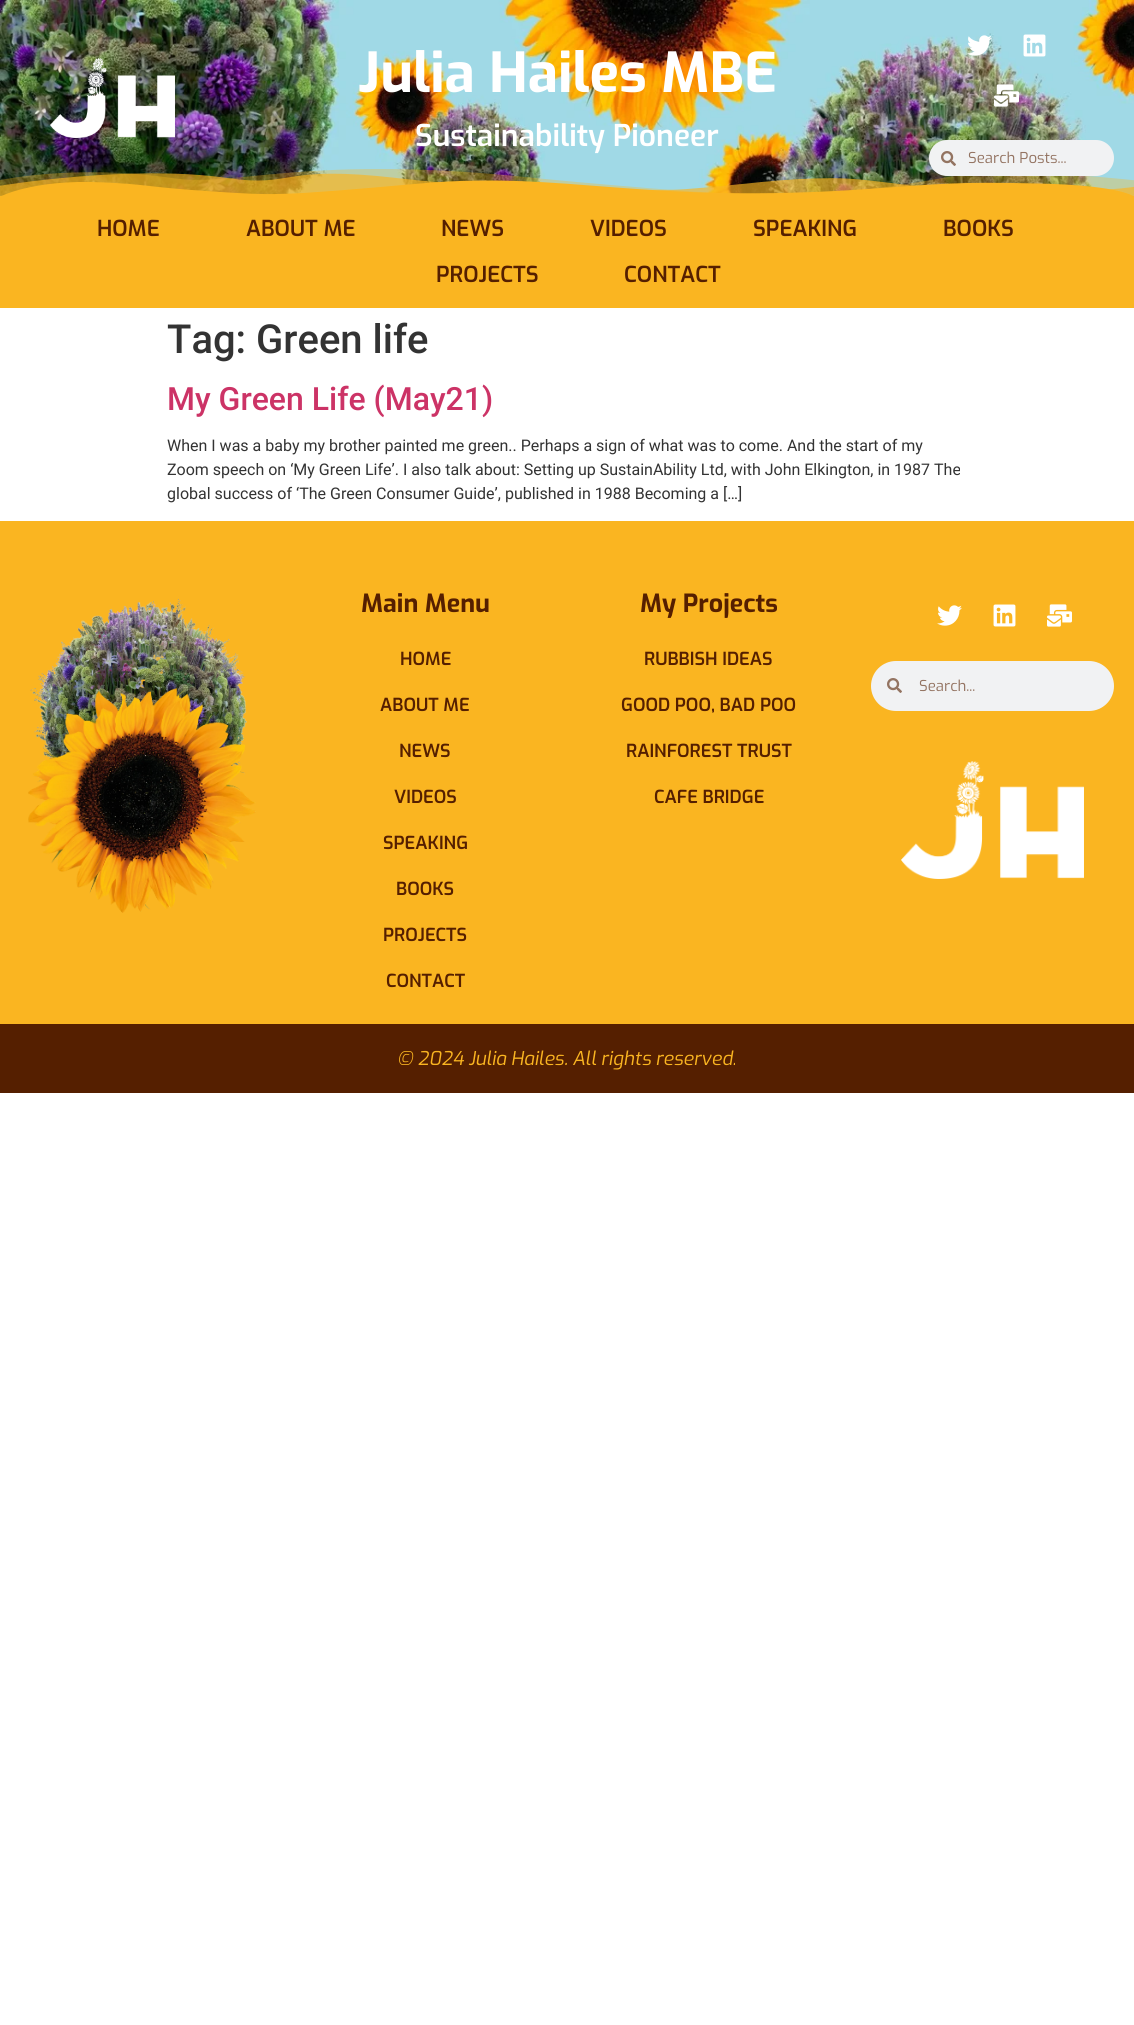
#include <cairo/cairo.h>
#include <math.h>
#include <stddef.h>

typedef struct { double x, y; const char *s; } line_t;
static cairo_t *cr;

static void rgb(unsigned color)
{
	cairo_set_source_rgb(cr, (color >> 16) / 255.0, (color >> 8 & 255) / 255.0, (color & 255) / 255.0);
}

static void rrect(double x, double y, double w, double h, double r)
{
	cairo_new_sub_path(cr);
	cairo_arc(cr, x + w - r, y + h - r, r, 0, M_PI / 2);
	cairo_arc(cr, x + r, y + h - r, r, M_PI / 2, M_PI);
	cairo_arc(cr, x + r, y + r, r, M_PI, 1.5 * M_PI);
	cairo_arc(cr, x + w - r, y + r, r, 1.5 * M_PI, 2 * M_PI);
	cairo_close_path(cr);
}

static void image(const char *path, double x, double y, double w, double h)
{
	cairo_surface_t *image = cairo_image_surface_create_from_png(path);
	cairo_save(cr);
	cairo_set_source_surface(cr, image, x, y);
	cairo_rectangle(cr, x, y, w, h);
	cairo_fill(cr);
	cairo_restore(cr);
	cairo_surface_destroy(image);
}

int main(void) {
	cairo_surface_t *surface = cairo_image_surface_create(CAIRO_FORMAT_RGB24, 1134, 2025);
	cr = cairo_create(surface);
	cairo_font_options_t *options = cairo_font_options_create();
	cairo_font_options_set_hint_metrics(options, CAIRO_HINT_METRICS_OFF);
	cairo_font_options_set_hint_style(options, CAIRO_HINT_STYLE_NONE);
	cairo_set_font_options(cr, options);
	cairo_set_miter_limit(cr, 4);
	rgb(0xffffff);
	cairo_paint(cr);
	image("img/1.png", 0, 0, 1134, 196);
	image("img/2.png", 50, 58, 125, 80);
	image("img/3.png", 967, 35, 25, 21);
	image("img/4.png", 1023, 34, 23, 23);
	image("img/5.png", 994, 84, 25, 23);
	image("img/7.png", 0, 169, 1134, 27);
	rgb(0xf1f2f3);
	rrect(929, 140, 185, 36, 18);
	cairo_fill(cr);
	image("img/6.png", 941, 151, 15, 15);
	rgb(0xfab521);
	cairo_rectangle(cr, 0, 196, 1134, 112);
	cairo_fill(cr);
	cairo_rectangle(cr, 0, 521, 1134, 503);
	cairo_fill(cr);
	image("img/8.png", 30, 598, 217, 168);
	image("img/9.png", 28, 688, 228, 225);
	image("img/10.png", 937, 605, 25, 21);
	image("img/11.png", 993, 604, 23, 23);
	image("img/12.png", 1047, 604, 25, 23);
	rgb(0xf1f2f3);
	rrect(871, 661, 243, 50, 25);
	cairo_fill(cr);
	image("img/6.png", 887, 678, 15, 15);
	image("img/13.png", 901, 761, 183, 118);
	rgb(0x551f00);
	cairo_rectangle(cr, 0, 1024, 1134, 69);
	cairo_fill(cr);
	cairo_select_font_face(cr, "Exo", CAIRO_FONT_SLANT_NORMAL, CAIRO_FONT_WEIGHT_BOLD);
	cairo_set_font_size(cr, 55);
	rgb(0xffffff);
	cairo_move_to(cr, 358, 92);
	cairo_show_text(cr, "Julia Hailes MBE");
	cairo_select_font_face(cr, "Exo SemiBold", CAIRO_FONT_SLANT_NORMAL, CAIRO_FONT_WEIGHT_NORMAL);
	cairo_set_font_size(cr, 30);
	cairo_move_to(cr, 415, 146);
	cairo_show_text(cr, "Sustainability Pioneer");
	cairo_select_font_face(cr, "Exo", CAIRO_FONT_SLANT_NORMAL, CAIRO_FONT_WEIGHT_NORMAL);
	cairo_set_font_size(cr, 15);
	rgb(0x937361);
	cairo_move_to(cr, 968, 163);
	cairo_show_text(cr, "Search Posts...");
	cairo_select_font_face(cr, "Exo SemiBold", CAIRO_FONT_SLANT_NORMAL, CAIRO_FONT_WEIGHT_NORMAL);
	cairo_set_font_size(cr, 22);
	rgb(0x551f00);
	{
		static const line_t items[] = {
			{97, 236, "HOME"},
			{246, 236, "ABOUT ME"},
			{441, 236, "NEWS"},
			{590, 236, "VIDEOS"},
			{753, 236, "SPEAKING"},
			{943, 236, "BOOKS"},
			{436, 282, "PROJECTS"},
			{624, 282, "CONTACT"},
		};
		for (size_t i = 0; i < sizeof items / sizeof *items; i++) {
			cairo_move_to(cr, items[i].x, items[i].y);
			cairo_show_text(cr, items[i].s);
		}
	}
	cairo_select_font_face(cr, "Roboto Medium", CAIRO_FONT_SLANT_NORMAL, CAIRO_FONT_WEIGHT_NORMAL);
	cairo_set_font_size(cr, 40);
	rgb(0x333333);
	cairo_move_to(cr, 167, 353);
	cairo_show_text(cr, "Tag: Green life");
	cairo_set_font_size(cr, 32);
	rgb(0xcc3366);
	cairo_move_to(cr, 167, 410);
	cairo_show_text(cr, "My Green Life (May21)");
	cairo_select_font_face(cr, "Roboto", CAIRO_FONT_SLANT_NORMAL, CAIRO_FONT_WEIGHT_NORMAL);
	cairo_set_font_size(cr, 16);
	rgb(0x333333);
	{
		static const line_t items[] = {
			{167, 451, "When I was a baby my brother painted me green.. Perhaps a sign of what was to come. And the start of my"},
			{167, 475, "Zoom speech on ‘My Green Life’. I also talk about: Setting up SustainAbility Ltd, with John Elkington, in 1987 The"},
			{167, 499, "global success of ‘The Green Consumer Guide’, published in 1988 Becoming a […]"},
		};
		for (size_t i = 0; i < sizeof items / sizeof *items; i++) {
			cairo_move_to(cr, items[i].x, items[i].y);
			cairo_show_text(cr, items[i].s);
		}
	}
	cairo_select_font_face(cr, "Exo", CAIRO_FONT_SLANT_NORMAL, CAIRO_FONT_WEIGHT_BOLD);
	cairo_set_font_size(cr, 25);
	rgb(0x551f00);
	cairo_move_to(cr, 361, 612);
	cairo_show_text(cr, "Main Menu");
	cairo_select_font_face(cr, "Exo SemiBold", CAIRO_FONT_SLANT_NORMAL, CAIRO_FONT_WEIGHT_NORMAL);
	cairo_set_font_size(cr, 18);
	{
		static const line_t items[] = {
			{400, 665, "HOME"},
			{380, 711, "ABOUT ME"},
			{399, 757, "NEWS"},
			{394, 803, "VIDEOS"},
			{383, 849, "SPEAKING"},
			{396, 895, "BOOKS"},
			{383, 941, "PROJECTS"},
			{386, 987, "CONTACT"},
		};
		for (size_t i = 0; i < sizeof items / sizeof *items; i++) {
			cairo_move_to(cr, items[i].x, items[i].y);
			cairo_show_text(cr, items[i].s);
		}
	}
	cairo_select_font_face(cr, "Exo", CAIRO_FONT_SLANT_NORMAL, CAIRO_FONT_WEIGHT_BOLD);
	cairo_set_font_size(cr, 25);
	cairo_move_to(cr, 640, 612);
	cairo_show_text(cr, "My Projects");
	cairo_select_font_face(cr, "Exo SemiBold", CAIRO_FONT_SLANT_NORMAL, CAIRO_FONT_WEIGHT_NORMAL);
	cairo_set_font_size(cr, 18);
	{
		static const line_t items[] = {
			{644, 665, "RUBBISH IDEAS"},
			{621, 711, "GOOD POO, BAD POO"},
			{626, 757, "RAINFOREST TRUST"},
			{654, 803, "CAFE BRIDGE"},
		};
		for (size_t i = 0; i < sizeof items / sizeof *items; i++) {
			cairo_move_to(cr, items[i].x, items[i].y);
			cairo_show_text(cr, items[i].s);
		}
	}
	cairo_select_font_face(cr, "Exo", CAIRO_FONT_SLANT_NORMAL, CAIRO_FONT_WEIGHT_NORMAL);
	cairo_set_font_size(cr, 15);
	rgb(0x937361);
	cairo_move_to(cr, 919, 691);
	cairo_show_text(cr, "Search...");
	cairo_select_font_face(cr, "Exo", CAIRO_FONT_SLANT_ITALIC, CAIRO_FONT_WEIGHT_NORMAL);
	cairo_set_font_size(cr, 19);
	rgb(0xfab521);
	cairo_move_to(cr, 397, 1065);
	cairo_show_text(cr, "© 2024 Julia Hailes. All rights reserved.");
	cairo_surface_write_to_png(surface, "page.png");
	cairo_font_options_destroy(options);
	cairo_destroy(cr);
	cairo_surface_destroy(surface);
	return 0;
}
